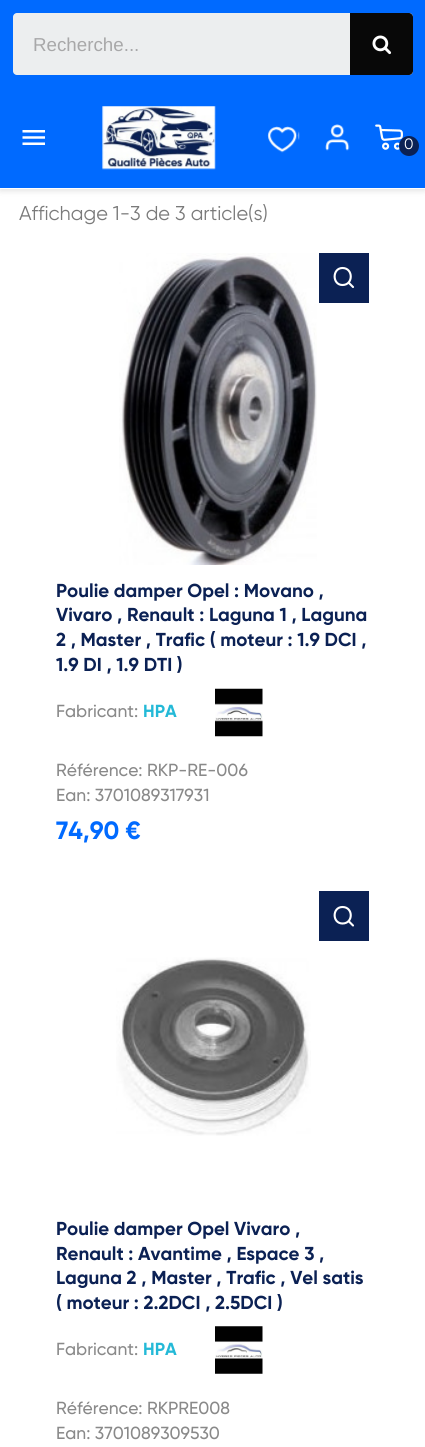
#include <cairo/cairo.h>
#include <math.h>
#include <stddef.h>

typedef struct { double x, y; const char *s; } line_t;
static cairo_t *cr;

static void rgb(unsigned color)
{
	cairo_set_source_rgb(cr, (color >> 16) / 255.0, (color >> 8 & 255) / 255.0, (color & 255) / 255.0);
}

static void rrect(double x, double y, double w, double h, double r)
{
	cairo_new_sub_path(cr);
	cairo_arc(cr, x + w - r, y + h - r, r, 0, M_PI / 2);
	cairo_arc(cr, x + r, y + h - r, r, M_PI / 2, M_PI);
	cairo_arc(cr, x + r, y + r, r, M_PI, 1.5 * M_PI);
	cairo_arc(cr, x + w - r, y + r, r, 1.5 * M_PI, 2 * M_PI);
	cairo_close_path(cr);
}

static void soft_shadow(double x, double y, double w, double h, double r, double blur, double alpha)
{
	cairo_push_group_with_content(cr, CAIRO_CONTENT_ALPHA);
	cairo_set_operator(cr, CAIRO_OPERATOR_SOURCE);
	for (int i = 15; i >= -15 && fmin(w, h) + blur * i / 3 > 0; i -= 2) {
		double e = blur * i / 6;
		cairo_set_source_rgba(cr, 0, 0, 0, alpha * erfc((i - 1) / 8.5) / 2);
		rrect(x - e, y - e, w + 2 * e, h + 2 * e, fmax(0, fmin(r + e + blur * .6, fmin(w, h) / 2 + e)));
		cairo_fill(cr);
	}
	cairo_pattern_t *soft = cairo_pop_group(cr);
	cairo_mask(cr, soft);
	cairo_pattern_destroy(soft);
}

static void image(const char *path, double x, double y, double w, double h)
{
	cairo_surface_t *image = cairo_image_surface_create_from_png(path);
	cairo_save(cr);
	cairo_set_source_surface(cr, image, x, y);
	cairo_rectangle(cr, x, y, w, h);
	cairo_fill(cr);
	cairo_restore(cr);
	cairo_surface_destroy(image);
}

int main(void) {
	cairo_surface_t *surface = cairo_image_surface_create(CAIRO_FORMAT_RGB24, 425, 1447);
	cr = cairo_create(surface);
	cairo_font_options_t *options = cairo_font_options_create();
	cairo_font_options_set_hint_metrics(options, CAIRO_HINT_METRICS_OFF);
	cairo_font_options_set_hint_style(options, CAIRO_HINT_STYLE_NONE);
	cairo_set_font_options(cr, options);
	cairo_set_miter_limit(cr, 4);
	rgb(0xffffff);
	cairo_paint(cr);
	rgb(0x000000);
	soft_shadow(0, 3, 425, 188, 0, 3, 0.11);
	rgb(0x006aff);
	cairo_rectangle(cr, 0, 0, 425, 188);
	cairo_fill(cr);
	rgb(0xeceeef);
	rrect(13, 13, 400, 62, 4);
	cairo_fill(cr);
	rgb(0x080808);
	cairo_new_path(cr);
	cairo_move_to(cr, 350, 13);
	cairo_line_to(cr, 409, 13);
	cairo_curve_to(cr, 411, 13, 413, 15, 413, 17);
	cairo_line_to(cr, 413, 71);
	cairo_curve_to(cr, 413, 73, 411, 75, 409, 75);
	cairo_line_to(cr, 350, 75);
	cairo_close_path(cr);
	cairo_fill(cr);
	image("img/1.png", 372, 35, 20, 20);
	rgb(0xffffff);
	cairo_rectangle(cr, 0, 188, 425, 1);
	cairo_fill(cr);
	image("img/2.png", 22, 130, 23, 15);
	image("img/3.png", 102, 106, 114, 64);
	image("img/4.png", 267, 126, 33, 27);
	image("img/5.png", 325, 124, 25, 27);
	image("img/6.png", 375, 124, 28, 26);
	rgb(0x0b2154);
	cairo_arc(cr, 409, 146, 10, 0, 2 * M_PI);
	cairo_fill(cr);
	image("img/7.png", 119, 253, 198, 312);
	cairo_rectangle(cr, 319, 253, 50, 50);
	cairo_fill(cr);
	cairo_new_path(cr);
	cairo_move_to(cr, 342.5, 285);
	cairo_curve_to(cr, 353.5, 285, 353.5, 268, 342.5, 268);
	cairo_curve_to(cr, 332, 268, 332, 285, 342.5, 285);
	cairo_close_path(cr);
	cairo_move_to(cr, 353, 287);
	cairo_line_to(cr, 348.5, 282.5);
	rgb(0xffffff);
	cairo_set_line_width(cr, 2.1);
	cairo_set_line_cap(cr, CAIRO_LINE_CAP_ROUND);
	cairo_set_line_join(cr, CAIRO_LINE_JOIN_ROUND);
	cairo_stroke(cr);
	image("img/8.png", 215, 688, 48, 49);
	rgb(0x0b2154);
	cairo_rectangle(cr, 319, 891, 50, 50);
	cairo_fill(cr);
	cairo_new_path(cr);
	cairo_move_to(cr, 342.5, 923.5);
	cairo_curve_to(cr, 353.5, 923.5, 353.5, 907, 342.5, 907);
	cairo_curve_to(cr, 332, 907, 332, 923.5, 342.5, 923.5);
	cairo_close_path(cr);
	cairo_move_to(cr, 353, 925.5);
	cairo_line_to(cr, 348.5, 921);
	rgb(0xffffff);
	cairo_stroke(cr);
	image("img/9.png", 116, 957, 195, 179);
	image("img/10.png", 215, 1326, 48, 48);
	cairo_select_font_face(cr, "Liberation Sans", CAIRO_FONT_SLANT_NORMAL, CAIRO_FONT_WEIGHT_NORMAL);
	cairo_set_font_size(cr, 18.75);
	rgb(0xa8a8a9);
	cairo_move_to(cr, 33, 51);
	cairo_show_text(cr, "Recherche...");
	cairo_select_font_face(cr, "Gilroy", CAIRO_FONT_SLANT_NORMAL, CAIRO_FONT_WEIGHT_NORMAL);
	cairo_set_font_size(cr, 15);
	rgb(0xffffff);
	cairo_move_to(cr, 404, 149);
	cairo_show_text(cr, "0");
	cairo_set_font_size(cr, 20);
	rgb(0x7a7a7a);
	cairo_move_to(cr, 19, 220);
	cairo_show_text(cr, "Affichage 1-3 de 3 article(s)");
	cairo_select_font_face(cr, "Gilroy", CAIRO_FONT_SLANT_NORMAL, CAIRO_FONT_WEIGHT_BOLD);
	cairo_set_font_size(cr, 18.75);
	rgb(0x0b2154);
	{
		static const line_t items[] = {
			{56, 597, "Poulie damper Opel : Movano ,"},
			{56, 621, "Vivaro , Renault : Laguna 1 , Laguna"},
			{56, 646, "2 , Master , Trafic ( moteur : 1.9 DCI ,"},
			{56, 671, "1.9 DI , 1.9 DTI )"},
		};
		for (size_t i = 0; i < sizeof items / sizeof *items; i++) {
			cairo_move_to(cr, items[i].x, items[i].y);
			cairo_show_text(cr, items[i].s);
		}
	}
	cairo_select_font_face(cr, "Gilroy Medium", CAIRO_FONT_SLANT_NORMAL, CAIRO_FONT_WEIGHT_NORMAL);
	cairo_set_font_size(cr, 17.5);
	rgb(0x898989);
	cairo_move_to(cr, 56, 717);
	cairo_show_text(cr, "Fabricant:");
	cairo_select_font_face(cr, "Gilroy", CAIRO_FONT_SLANT_NORMAL, CAIRO_FONT_WEIGHT_BOLD);
	rgb(0x24b9d7);
	cairo_move_to(cr, 143, 717);
	cairo_show_text(cr, "HPA");
	cairo_select_font_face(cr, "Gilroy Medium", CAIRO_FONT_SLANT_NORMAL, CAIRO_FONT_WEIGHT_NORMAL);
	rgb(0x898989);
	cairo_move_to(cr, 56, 776);
	cairo_show_text(cr, "Référence: RKP-RE-006");
	cairo_move_to(cr, 56, 801);
	cairo_show_text(cr, "Ean: 3701089317931");
	cairo_select_font_face(cr, "Gilroy", CAIRO_FONT_SLANT_NORMAL, CAIRO_FONT_WEIGHT_BOLD);
	cairo_set_font_size(cr, 25);
	rgb(0x006aff);
	cairo_move_to(cr, 56, 839);
	cairo_show_text(cr, "74,90 €");
	cairo_set_font_size(cr, 18.75);
	rgb(0x0b2154);
	{
		static const line_t items[] = {
			{56, 1235, "Poulie damper Opel Vivaro ,"},
			{56, 1260, "Renault : Avantime , Espace 3 ,"},
			{56, 1284, "Laguna 2 , Master , Trafic , Vel satis"},
			{56, 1309, "( moteur : 2.2DCI , 2.5DCI )"},
		};
		for (size_t i = 0; i < sizeof items / sizeof *items; i++) {
			cairo_move_to(cr, items[i].x, items[i].y);
			cairo_show_text(cr, items[i].s);
		}
	}
	cairo_select_font_face(cr, "Gilroy Medium", CAIRO_FONT_SLANT_NORMAL, CAIRO_FONT_WEIGHT_NORMAL);
	cairo_set_font_size(cr, 17.5);
	rgb(0x898989);
	cairo_move_to(cr, 56, 1355);
	cairo_show_text(cr, "Fabricant:");
	cairo_select_font_face(cr, "Gilroy", CAIRO_FONT_SLANT_NORMAL, CAIRO_FONT_WEIGHT_BOLD);
	rgb(0x24b9d7);
	cairo_move_to(cr, 143, 1355);
	cairo_show_text(cr, "HPA");
	cairo_select_font_face(cr, "Gilroy Medium", CAIRO_FONT_SLANT_NORMAL, CAIRO_FONT_WEIGHT_NORMAL);
	rgb(0x898989);
	cairo_move_to(cr, 56, 1414);
	cairo_show_text(cr, "Référence: RKPRE008");
	cairo_move_to(cr, 56, 1439);
	cairo_show_text(cr, "Ean: 3701089309530");
	cairo_surface_write_to_png(surface, "page.png");
	cairo_font_options_destroy(options);
	cairo_destroy(cr);
	cairo_surface_destroy(surface);
	return 0;
}
